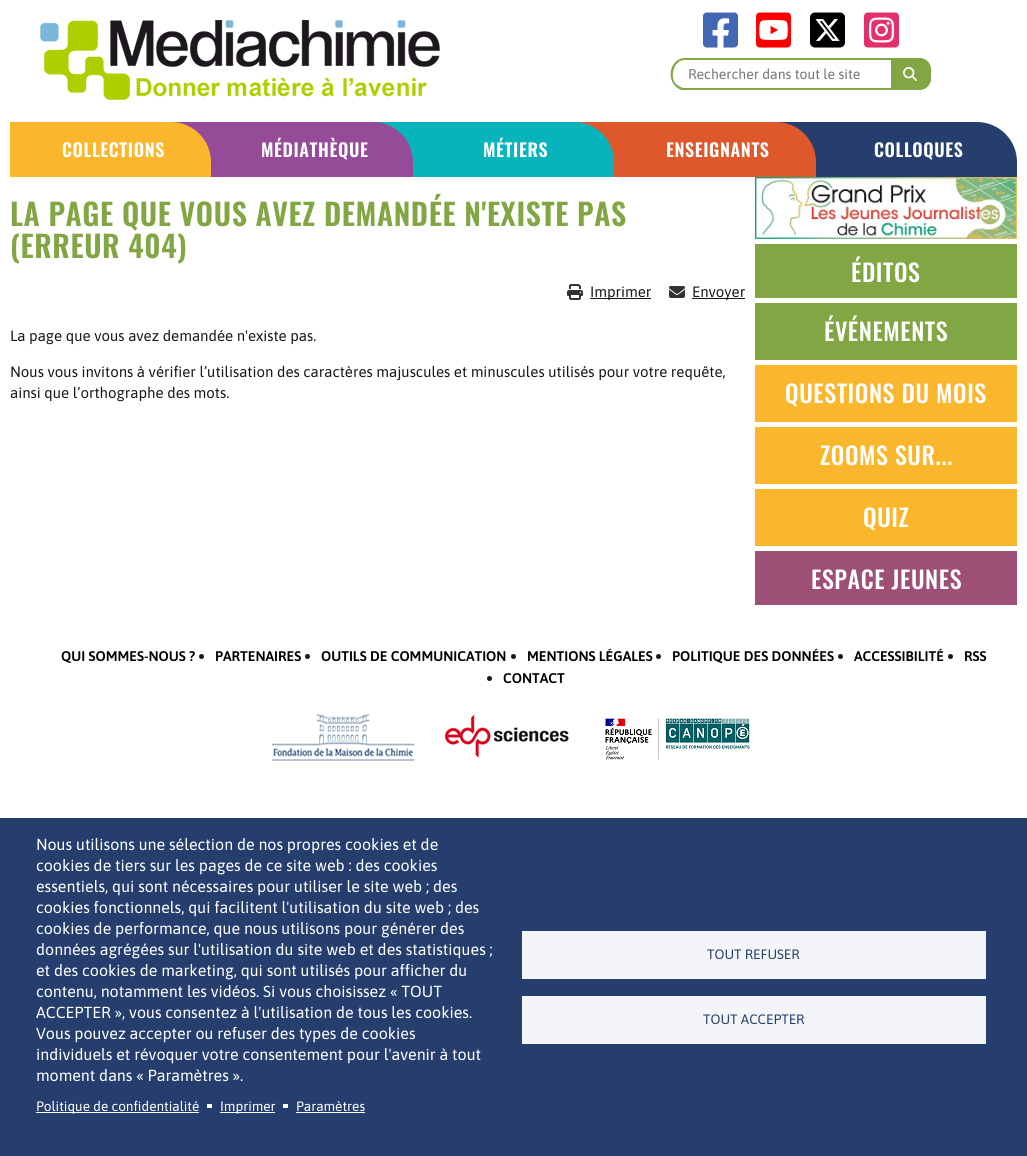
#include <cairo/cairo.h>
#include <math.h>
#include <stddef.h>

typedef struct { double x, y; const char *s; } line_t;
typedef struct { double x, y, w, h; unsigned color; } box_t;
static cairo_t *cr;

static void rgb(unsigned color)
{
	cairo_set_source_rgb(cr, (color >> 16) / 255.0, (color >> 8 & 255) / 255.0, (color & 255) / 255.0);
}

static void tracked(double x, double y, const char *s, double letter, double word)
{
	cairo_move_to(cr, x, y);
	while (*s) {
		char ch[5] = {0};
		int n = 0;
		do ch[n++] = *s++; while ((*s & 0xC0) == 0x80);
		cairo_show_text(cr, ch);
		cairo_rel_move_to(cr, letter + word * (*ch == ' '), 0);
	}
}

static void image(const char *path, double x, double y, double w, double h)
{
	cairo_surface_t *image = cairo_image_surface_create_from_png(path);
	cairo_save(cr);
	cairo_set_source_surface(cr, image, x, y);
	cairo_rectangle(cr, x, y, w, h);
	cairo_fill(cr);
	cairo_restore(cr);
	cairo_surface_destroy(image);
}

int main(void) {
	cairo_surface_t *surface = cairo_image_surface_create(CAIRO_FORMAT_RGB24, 1027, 1156);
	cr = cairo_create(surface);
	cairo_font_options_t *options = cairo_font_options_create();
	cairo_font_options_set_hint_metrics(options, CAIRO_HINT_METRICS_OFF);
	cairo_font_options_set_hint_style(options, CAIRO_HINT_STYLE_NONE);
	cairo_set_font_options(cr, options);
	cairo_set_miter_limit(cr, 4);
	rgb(0xffffff);
	cairo_paint(cr);
	image("img/1.png", 40, 20, 400, 80);
	image("img/2.png", 703, 12, 35, 36);
	image("img/3.png", 756, 12, 35, 36);
	image("img/4.png", 810, 12, 35, 36);
	image("img/5.png", 864, 12, 35, 36);
	rgb(0x83a645);
	cairo_set_fill_rule(cr, CAIRO_FILL_RULE_EVEN_ODD);
	cairo_new_path(cr);
	cairo_move_to(cr, 685, 58);
	cairo_line_to(cr, 891, 58);
	cairo_line_to(cr, 891, 90);
	cairo_line_to(cr, 682, 90);
	cairo_curve_to(cr, 678, 89, 674, 86, 672, 81);
	cairo_curve_to(cr, 668, 72, 673, 58, 685, 58);
	cairo_close_path(cr);
	cairo_move_to(cr, 685, 60);
	cairo_line_to(cr, 891, 60);
	cairo_line_to(cr, 891, 88);
	cairo_line_to(cr, 683, 88);
	cairo_curve_to(cr, 680, 87, 677, 85, 675, 83);
	cairo_curve_to(cr, 670, 75, 674, 60, 685, 60);
	cairo_close_path(cr);
	cairo_fill(cr);
	cairo_new_path(cr);
	cairo_move_to(cr, 891, 58);
	cairo_line_to(cr, 919, 58);
	cairo_curve_to(cr, 925.5, 58, 931, 63.5, 931, 70);
	cairo_line_to(cr, 931, 78);
	cairo_curve_to(cr, 931, 84.5, 925.5, 90, 919, 90);
	cairo_line_to(cr, 891, 90);
	cairo_close_path(cr);
	cairo_fill(cr);
	cairo_new_path(cr);
	cairo_move_to(cr, 891, 58);
	cairo_line_to(cr, 919, 58);
	cairo_curve_to(cr, 926, 58, 931, 63, 931, 70);
	cairo_line_to(cr, 931, 78);
	cairo_curve_to(cr, 931, 85, 926, 90, 919, 90);
	cairo_line_to(cr, 891, 90);
	cairo_close_path(cr);
	cairo_move_to(cr, 891, 60);
	cairo_line_to(cr, 919, 60);
	cairo_curve_to(cr, 925, 60, 929, 64, 929, 70);
	cairo_line_to(cr, 929, 78);
	cairo_curve_to(cr, 929, 84, 925, 88, 919, 88);
	cairo_line_to(cr, 891, 88);
	cairo_close_path(cr);
	cairo_fill(cr);
	image("img/6.png", 903, 67, 14, 14);
	rgb(0x954b97);
	cairo_rectangle(cr, 171, 122, 40, 40);
	cairo_fill(cr);
	rgb(0xfab62d);
	cairo_new_path(cr);
	cairo_move_to(cr, 10, 122);
	cairo_line_to(cr, 171, 122);
	cairo_curve_to(cr, 193, 122, 211, 140, 211, 162);
	cairo_line_to(cr, 211, 177);
	cairo_line_to(cr, 10, 177);
	cairo_close_path(cr);
	cairo_fill(cr);
	rgb(0x07b4bb);
	cairo_rectangle(cr, 373, 122, 40, 40);
	cairo_fill(cr);
	rgb(0x954b97);
	cairo_new_path(cr);
	cairo_move_to(cr, 211, 122);
	cairo_line_to(cr, 373, 122);
	cairo_curve_to(cr, 395, 122, 413, 140, 413, 162);
	cairo_line_to(cr, 413, 177);
	cairo_line_to(cr, 211, 177);
	cairo_close_path(cr);
	cairo_fill(cr);
	rgb(0xde582b);
	cairo_rectangle(cr, 574, 122, 40, 40);
	cairo_fill(cr);
	rgb(0x07b4bb);
	cairo_new_path(cr);
	cairo_move_to(cr, 413, 122);
	cairo_line_to(cr, 574, 122);
	cairo_curve_to(cr, 596, 122, 614, 140, 614, 162);
	cairo_line_to(cr, 614, 177);
	cairo_line_to(cr, 413, 177);
	cairo_close_path(cr);
	cairo_fill(cr);
	rgb(0x253e6e);
	cairo_rectangle(cr, 776, 122, 40, 40);
	cairo_fill(cr);
	rgb(0xde582b);
	cairo_new_path(cr);
	cairo_move_to(cr, 614, 122);
	cairo_line_to(cr, 776, 122);
	cairo_curve_to(cr, 798, 122, 816, 140, 816, 162);
	cairo_line_to(cr, 816, 177);
	cairo_line_to(cr, 614, 177);
	cairo_close_path(cr);
	cairo_fill(cr);
	rgb(0x253e6e);
	cairo_new_path(cr);
	cairo_move_to(cr, 816, 122);
	cairo_line_to(cr, 977, 122);
	cairo_curve_to(cr, 999, 122, 1017, 140, 1017, 162);
	cairo_line_to(cr, 1017, 177);
	cairo_line_to(cr, 816, 177);
	cairo_close_path(cr);
	cairo_fill(cr);
	image("img/7.png", 567, 284, 16, 16);
	rgb(0x1a171b);
	cairo_rectangle(cr, 590, 298, 61, 1);
	cairo_fill(cr);
	image("img/8.png", 669, 286, 16, 12);
	cairo_rectangle(cr, 692, 298, 53, 1);
	cairo_fill(cr);
	image("img/9.png", 755, 177, 262, 62);
	{
		static const box_t items[] = {
			{755, 244, 262, 54, 0x83a645},
			{755, 303, 262, 57, 0x83a645},
			{755, 365, 262, 57, 0xfab62d},
			{755, 427, 262, 57, 0xfab62d},
			{755, 489, 262, 57, 0xfab62d},
			{755, 551, 262, 54, 0x9e4f75},
		};
		for (size_t i = 0; i < sizeof items / sizeof *items; i++) {
			rgb(items[i].color);
			cairo_rectangle(cr, items[i].x, items[i].y, items[i].w, items[i].h);
			cairo_fill(cr);
		}
	}
	rgb(0x1a171b);
	cairo_arc(cr, 201.5, 656.5, 2.5, 0, 2 * M_PI);
	cairo_fill(cr);
	cairo_arc(cr, 307.5, 656.5, 2.5, 0, 2 * M_PI);
	cairo_fill(cr);
	cairo_arc(cr, 513.5, 656.5, 2.5, 0, 2 * M_PI);
	cairo_fill(cr);
	cairo_arc(cr, 658.5, 656.5, 2.5, 0, 2 * M_PI);
	cairo_fill(cr);
	cairo_arc(cr, 840.5, 656.5, 2.5, 0, 2 * M_PI);
	cairo_fill(cr);
	cairo_arc(cr, 950.5, 656.5, 2.5, 0, 2 * M_PI);
	cairo_fill(cr);
	cairo_arc(cr, 489.5, 678.5, 2.5, 0, 2 * M_PI);
	cairo_fill(cr);
	image("img/10.png", 272, 714, 143, 47);
	image("img/11.png", 444, 714, 125, 44);
	image("img/12.png", 605, 718, 145, 42);
	{
		static const box_t items[] = {
			{0, 818, 1027, 338, 0x253e6e},
			{36, 1112, 163, 1, 0xffffff},
			{207, 1104, 5, 4, 0xffffff},
			{220, 1112, 55, 1, 0xffffff},
			{283, 1104, 5, 4, 0xffffff},
			{296, 1112, 69, 1, 0xffffff},
			{522, 931, 464, 48, 0xf4f5f8},
			{522, 996, 464, 48, 0xf4f5f8},
		};
		for (size_t i = 0; i < sizeof items / sizeof *items; i++) {
			rgb(items[i].color);
			cairo_rectangle(cr, items[i].x, items[i].y, items[i].w, items[i].h);
			cairo_fill(cr);
		}
	}
	cairo_select_font_face(cr, "Asap", CAIRO_FONT_SLANT_NORMAL, CAIRO_FONT_WEIGHT_NORMAL);
	cairo_set_font_size(cr, 14);
	rgb(0x757575);
	cairo_move_to(cr, 688, 79);
	cairo_show_text(cr, "Rechercher dans tout le site");
	cairo_select_font_face(cr, "Oswald SemiBold", CAIRO_FONT_SLANT_NORMAL, CAIRO_FONT_WEIGHT_NORMAL);
	cairo_set_font_size(cr, 18);
	rgb(0xffffff);
	{
		static const line_t items[] = {
			{62, 157, "COLLECTIONS"},
			{261, 157, "MÉDIATHÈQUE"},
			{483, 157, "MÉTIERS"},
			{666, 157, "ENSEIGNANTS"},
			{874, 157, "COLLOQUES"},
		};
		for (size_t i = 0; i < sizeof items / sizeof *items; i++) {
			tracked(items[i].x, items[i].y, items[i].s, 0.6, 0);
		}
	}
	cairo_set_font_size(cr, 30);
	rgb(0x83a645);
	tracked(10, 226, "LA PAGE QUE VOUS AVEZ DEMANDÉE N'EXISTE PAS", 0.6, 0);
	tracked(10, 258, "(ERREUR 404)", 0.6, 0);
	cairo_select_font_face(cr, "Asap", CAIRO_FONT_SLANT_NORMAL, CAIRO_FONT_WEIGHT_NORMAL);
	cairo_set_font_size(cr, 15);
	rgb(0x1a171b);
	{
		static const line_t items[] = {
			{590, 297, "Imprimer"},
			{692, 297, "Envoyer"},
			{10, 341, "La page que vous avez demandée n'existe pas."},
			{10, 377, "Nous vous invitons à vérifier l’utilisation des caractères majuscules et minuscules utilisés pour votre requête,"},
			{10, 398, "ainsi que l’orthographe des mots."},
		};
		for (size_t i = 0; i < sizeof items / sizeof *items; i++) {
			cairo_move_to(cr, items[i].x, items[i].y);
			cairo_show_text(cr, items[i].s);
		}
	}
	cairo_select_font_face(cr, "Oswald Medium", CAIRO_FONT_SLANT_NORMAL, CAIRO_FONT_WEIGHT_NORMAL);
	cairo_set_font_size(cr, 24);
	rgb(0xffffff);
	{
		static const line_t items[] = {
			{851, 282, "ÉDITOS"},
			{824, 341, "ÉVÉNEMENTS"},
			{785, 403, "QUESTIONS DU MOIS"},
			{820, 465, "ZOOMS SUR..."},
			{863, 527, "QUIZ"},
			{811, 589, "ESPACE JEUNES"},
		};
		for (size_t i = 0; i < sizeof items / sizeof *items; i++) {
			tracked(items[i].x, items[i].y, items[i].s, 0.6, 0);
		}
	}
	cairo_select_font_face(cr, "Asap SemiBold", CAIRO_FONT_SLANT_NORMAL, CAIRO_FONT_WEIGHT_NORMAL);
	cairo_set_font_size(cr, 14);
	rgb(0x000000);
	{
		static const line_t items[] = {
			{61, 661, "QUI SOMMES-NOUS ?"},
			{215, 661, "PARTENAIRES"},
			{321, 661, "OUTILS DE COMMUNICATION"},
			{527, 661, "MENTIONS LÉGALES"},
			{672, 661, "POLITIQUE DES DONNÉES"},
			{854, 661, "ACCESSIBILITÉ"},
			{964, 661, "RSS"},
			{503, 683, "CONTACT"},
		};
		for (size_t i = 0; i < sizeof items / sizeof *items; i++) {
			cairo_move_to(cr, items[i].x, items[i].y);
			cairo_show_text(cr, items[i].s);
		}
	}
	cairo_select_font_face(cr, "Asap", CAIRO_FONT_SLANT_NORMAL, CAIRO_FONT_WEIGHT_NORMAL);
	cairo_set_font_size(cr, 16);
	rgb(0xffffff);
	{
		static const line_t items[] = {
			{36, 850, "Nous utilisons une sélection de nos propres cookies et de"},
			{36, 871, "cookies de tiers sur les pages de ce site web : des cookies"},
			{36, 892, "essentiels, qui sont nécessaires pour utiliser le site web ; des"},
			{36, 913, "cookies fonctionnels, qui facilitent l'utilisation du site web ; des"},
			{36, 934, "cookies de performance, que nous utilisons pour générer des"},
			{36, 955, "données agrégées sur l'utilisation du site web et des statistiques ;"},
			{36, 976, "et des cookies de marketing, qui sont utilisés pour afficher du"},
			{36, 997, "contenu, notamment les vidéos. Si vous choisissez « TOUT"},
			{36, 1018, "ACCEPTER », vous consentez à l'utilisation de tous les cookies."},
			{36, 1039, "Vous pouvez accepter ou refuser des types de cookies"},
			{36, 1060, "individuels et révoquer votre consentement pour l'avenir à tout"},
			{36, 1081, "moment dans « Paramètres »."},
		};
		for (size_t i = 0; i < sizeof items / sizeof *items; i++) {
			cairo_move_to(cr, items[i].x, items[i].y);
			cairo_show_text(cr, items[i].s);
		}
	}
	cairo_set_font_size(cr, 13.6);
	{
		static const line_t items[] = {
			{36, 1111, "Politique de confidentialité"},
			{220, 1111, "Imprimer"},
			{296, 1111, "Paramètres"},
		};
		for (size_t i = 0; i < sizeof items / sizeof *items; i++) {
			cairo_move_to(cr, items[i].x, items[i].y);
			cairo_show_text(cr, items[i].s);
		}
	}
	rgb(0x253e6e);
	cairo_move_to(cr, 707, 959);
	cairo_show_text(cr, "TOUT REFUSER");
	cairo_move_to(cr, 703, 1024);
	cairo_show_text(cr, "TOUT ACCEPTER");
	cairo_surface_write_to_png(surface, "page.png");
	cairo_font_options_destroy(options);
	cairo_destroy(cr);
	cairo_surface_destroy(surface);
	return 0;
}
